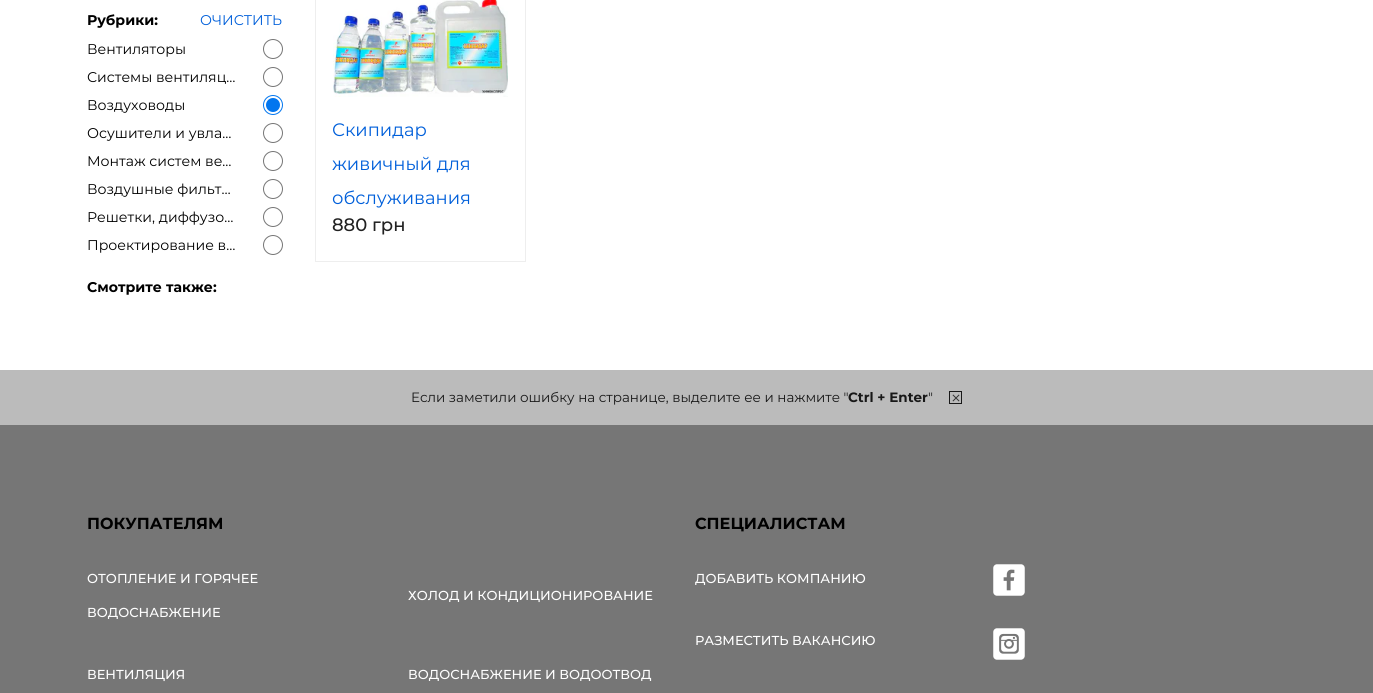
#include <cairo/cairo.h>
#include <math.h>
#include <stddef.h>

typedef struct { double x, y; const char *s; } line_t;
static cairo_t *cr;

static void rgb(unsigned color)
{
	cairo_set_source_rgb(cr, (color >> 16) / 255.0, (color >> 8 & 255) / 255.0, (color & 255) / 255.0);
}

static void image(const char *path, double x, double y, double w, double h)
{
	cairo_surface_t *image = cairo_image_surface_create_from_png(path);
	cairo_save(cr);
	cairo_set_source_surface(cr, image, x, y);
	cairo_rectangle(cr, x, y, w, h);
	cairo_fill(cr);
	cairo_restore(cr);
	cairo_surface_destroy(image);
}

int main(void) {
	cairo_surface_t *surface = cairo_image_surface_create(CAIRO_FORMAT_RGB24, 1373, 693);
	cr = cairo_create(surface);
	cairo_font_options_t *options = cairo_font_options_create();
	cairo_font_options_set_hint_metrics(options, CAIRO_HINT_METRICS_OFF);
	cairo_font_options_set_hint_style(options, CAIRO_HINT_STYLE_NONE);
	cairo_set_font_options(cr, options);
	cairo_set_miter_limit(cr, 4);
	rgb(0xffffff);
	cairo_paint(cr);
	cairo_arc(cr, 273, 49, 9.5, 0, 2 * M_PI);
	rgb(0x757575);
	cairo_set_line_width(cr, 1);
	cairo_stroke(cr);
	cairo_arc(cr, 273, 77, 9.5, 0, 2 * M_PI);
	cairo_stroke(cr);
	cairo_arc(cr, 273, 105, 9.5, 0, 2 * M_PI);
	rgb(0x0276ef);
	cairo_stroke(cr);
	cairo_arc(cr, 273, 105, 7, 0, 2 * M_PI);
	cairo_fill(cr);
	cairo_arc(cr, 273, 133, 9.5, 0, 2 * M_PI);
	rgb(0x757575);
	cairo_stroke(cr);
	cairo_arc(cr, 273, 161, 9.5, 0, 2 * M_PI);
	cairo_stroke(cr);
	cairo_arc(cr, 273, 189, 9.5, 0, 2 * M_PI);
	cairo_stroke(cr);
	cairo_arc(cr, 273, 217, 9.5, 0, 2 * M_PI);
	cairo_stroke(cr);
	cairo_arc(cr, 273, 245, 9.5, 0, 2 * M_PI);
	cairo_stroke(cr);
	cairo_rectangle(cr, 315.5, -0.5, 210, 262);
	rgb(0xeeeeee);
	cairo_stroke(cr);
	image("img/1.png", 333, 0, 175, 97);
	rgb(0xbbbbbb);
	cairo_rectangle(cr, 0, 370, 1373, 55);
	cairo_fill(cr);
	cairo_rectangle(cr, 949.5, 391.5, 12, 12);
	rgb(0x181818);
	cairo_stroke(cr);
	image("img/2.png", 952, 394, 8, 8);
	rgb(0x767676);
	cairo_rectangle(cr, 0, 425, 1373, 268);
	cairo_fill(cr);
	image("img/3.png", 993, 564, 32, 32);
	image("img/4.png", 993, 628, 32, 32);
	cairo_select_font_face(cr, "Montserrat", CAIRO_FONT_SLANT_NORMAL, CAIRO_FONT_WEIGHT_BOLD);
	cairo_set_font_size(cr, 14.1);
	rgb(0x000000);
	cairo_move_to(cr, 87, 25);
	cairo_show_text(cr, "Рубрики:");
	cairo_select_font_face(cr, "Montserrat", CAIRO_FONT_SLANT_NORMAL, CAIRO_FONT_WEIGHT_NORMAL);
	rgb(0x005fda);
	cairo_move_to(cr, 200, 25);
	cairo_show_text(cr, "ОЧИСТИТЬ");
	rgb(0x000000);
	{
		static const line_t items[] = {
			{87, 54, "Вентиляторы"},
			{87, 82, "Системы вентиляц…"},
			{87, 110, "Воздуховоды"},
			{87, 138, "Осушители и увла…"},
			{87, 166, "Монтаж систем ве…"},
			{87, 194, "Воздушные фильт…"},
			{87, 222, "Решетки, диффузо…"},
			{87, 250, "Проектирование в…"},
		};
		for (size_t i = 0; i < sizeof items / sizeof *items; i++) {
			cairo_move_to(cr, items[i].x, items[i].y);
			cairo_show_text(cr, items[i].s);
		}
	}
	cairo_select_font_face(cr, "Montserrat", CAIRO_FONT_SLANT_NORMAL, CAIRO_FONT_WEIGHT_BOLD);
	cairo_move_to(cr, 87, 292);
	cairo_show_text(cr, "Смотрите также:");
	cairo_select_font_face(cr, "Montserrat", CAIRO_FONT_SLANT_NORMAL, CAIRO_FONT_WEIGHT_NORMAL);
	cairo_set_font_size(cr, 18);
	rgb(0x005fda);
	{
		static const line_t items[] = {
			{332, 136, "Скипидар"},
			{332, 170, "живичный для"},
			{332, 204, "обслуживания"},
		};
		for (size_t i = 0; i < sizeof items / sizeof *items; i++) {
			cairo_move_to(cr, items[i].x, items[i].y);
			cairo_show_text(cr, items[i].s);
		}
	}
	cairo_select_font_face(cr, "Montserrat Medium", CAIRO_FONT_SLANT_NORMAL, CAIRO_FONT_WEIGHT_NORMAL);
	rgb(0x212121);
	cairo_move_to(cr, 332, 231);
	cairo_show_text(cr, "880 грн");
	cairo_select_font_face(cr, "Montserrat", CAIRO_FONT_SLANT_NORMAL, CAIRO_FONT_WEIGHT_NORMAL);
	cairo_set_font_size(cr, 13.5);
	rgb(0x181818);
	cairo_move_to(cr, 411, 402);
	cairo_show_text(cr, "Если заметили ошибку на странице, выделите ее и нажмите \"");
	cairo_select_font_face(cr, "Montserrat", CAIRO_FONT_SLANT_NORMAL, CAIRO_FONT_WEIGHT_BOLD);
	cairo_move_to(cr, 848, 402);
	cairo_show_text(cr, "Ctrl + Enter");
	cairo_select_font_face(cr, "Montserrat", CAIRO_FONT_SLANT_NORMAL, CAIRO_FONT_WEIGHT_NORMAL);
	cairo_move_to(cr, 928, 402);
	cairo_show_text(cr, "\"");
	cairo_select_font_face(cr, "Montserrat", CAIRO_FONT_SLANT_NORMAL, CAIRO_FONT_WEIGHT_BOLD);
	cairo_set_font_size(cr, 16);
	rgb(0x000000);
	cairo_move_to(cr, 87, 529);
	cairo_show_text(cr, "ПОКУПАТЕЛЯМ");
	cairo_select_font_face(cr, "Montserrat Medium", CAIRO_FONT_SLANT_NORMAL, CAIRO_FONT_WEIGHT_NORMAL);
	cairo_set_font_size(cr, 13);
	rgb(0xffffff);
	{
		static const line_t items[] = {
			{87, 583, "ОТОПЛЕНИЕ И ГОРЯЧЕЕ"},
			{87, 617, "ВОДОСНАБЖЕНИЕ"},
			{408, 600, "ХОЛОД И КОНДИЦИОНИРОВАНИЕ"},
			{87, 679, "ВЕНТИЛЯЦИЯ"},
			{408, 679, "ВОДОСНАБЖЕНИЕ И ВОДООТВОД"},
		};
		for (size_t i = 0; i < sizeof items / sizeof *items; i++) {
			cairo_move_to(cr, items[i].x, items[i].y);
			cairo_show_text(cr, items[i].s);
		}
	}
	cairo_select_font_face(cr, "Montserrat", CAIRO_FONT_SLANT_NORMAL, CAIRO_FONT_WEIGHT_BOLD);
	cairo_set_font_size(cr, 16);
	rgb(0x000000);
	cairo_move_to(cr, 695, 529);
	cairo_show_text(cr, "СПЕЦИАЛИСТАМ");
	cairo_select_font_face(cr, "Montserrat Medium", CAIRO_FONT_SLANT_NORMAL, CAIRO_FONT_WEIGHT_NORMAL);
	cairo_set_font_size(cr, 13);
	rgb(0xffffff);
	cairo_move_to(cr, 695, 583);
	cairo_show_text(cr, "ДОБАВИТЬ КОМПАНИЮ");
	cairo_move_to(cr, 695, 645);
	cairo_show_text(cr, "РАЗМЕСТИТЬ ВАКАНСИЮ");
	cairo_surface_write_to_png(surface, "page.png");
	cairo_font_options_destroy(options);
	cairo_destroy(cr);
	cairo_surface_destroy(surface);
	return 0;
}
